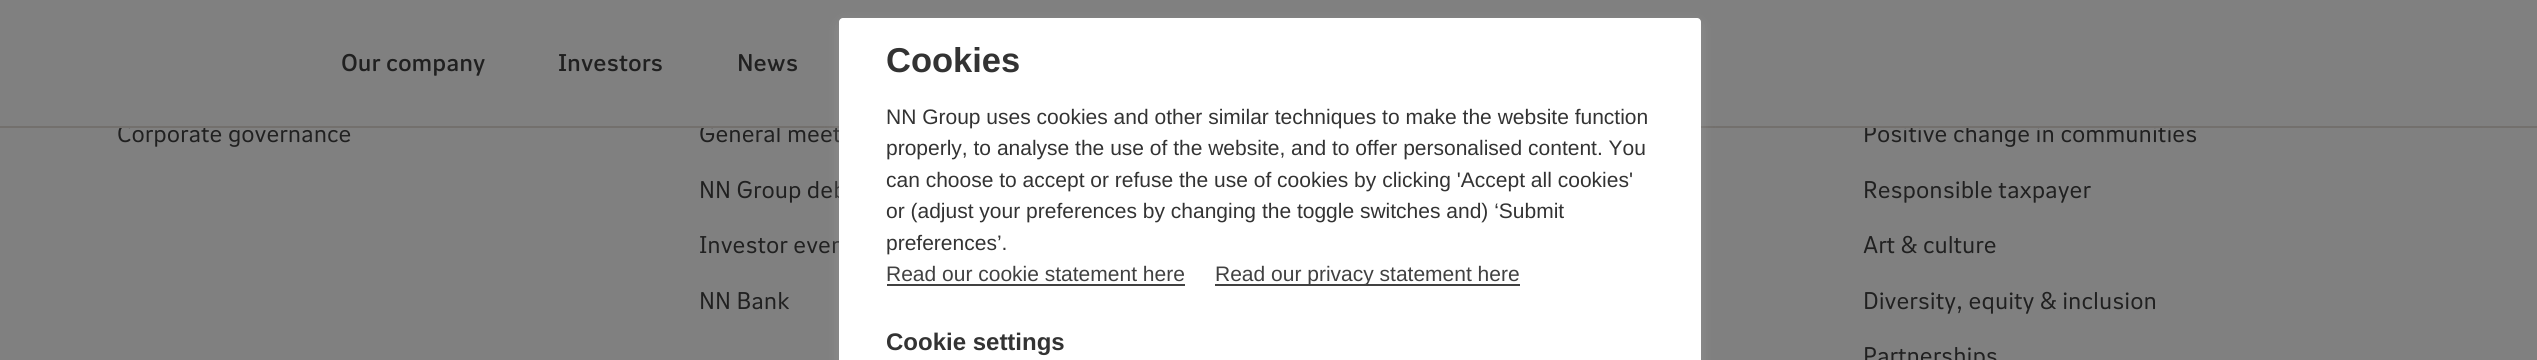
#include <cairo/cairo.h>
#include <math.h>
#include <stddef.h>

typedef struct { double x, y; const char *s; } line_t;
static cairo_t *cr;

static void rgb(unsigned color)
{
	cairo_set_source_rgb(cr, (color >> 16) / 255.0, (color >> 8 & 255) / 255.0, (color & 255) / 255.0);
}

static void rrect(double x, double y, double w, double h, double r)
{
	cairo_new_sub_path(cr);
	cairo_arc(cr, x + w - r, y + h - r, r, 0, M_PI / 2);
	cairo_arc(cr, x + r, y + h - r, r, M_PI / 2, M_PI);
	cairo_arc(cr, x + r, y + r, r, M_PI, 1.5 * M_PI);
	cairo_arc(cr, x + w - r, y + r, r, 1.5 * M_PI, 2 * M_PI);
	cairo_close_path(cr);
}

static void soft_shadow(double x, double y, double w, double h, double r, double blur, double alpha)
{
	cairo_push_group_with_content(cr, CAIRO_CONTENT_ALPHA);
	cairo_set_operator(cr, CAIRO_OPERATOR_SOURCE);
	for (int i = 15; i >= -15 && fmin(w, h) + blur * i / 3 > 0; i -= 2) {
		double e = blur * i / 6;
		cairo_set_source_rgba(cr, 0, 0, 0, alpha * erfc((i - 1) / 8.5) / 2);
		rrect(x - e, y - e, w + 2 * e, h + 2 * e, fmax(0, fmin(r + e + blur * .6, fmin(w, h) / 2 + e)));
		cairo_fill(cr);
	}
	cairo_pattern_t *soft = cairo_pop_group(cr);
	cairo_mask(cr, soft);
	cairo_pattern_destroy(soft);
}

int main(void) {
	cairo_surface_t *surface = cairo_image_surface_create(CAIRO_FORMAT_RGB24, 2537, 360);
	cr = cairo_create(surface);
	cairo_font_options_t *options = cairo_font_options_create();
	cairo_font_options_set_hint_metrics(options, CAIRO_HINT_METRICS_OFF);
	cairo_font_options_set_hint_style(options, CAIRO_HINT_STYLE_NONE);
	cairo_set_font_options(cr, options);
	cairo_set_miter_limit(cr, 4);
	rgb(0x808080);
	cairo_paint(cr);
	cairo_select_font_face(cr, "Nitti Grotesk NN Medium", CAIRO_FONT_SLANT_NORMAL, CAIRO_FONT_WEIGHT_NORMAL);
	cairo_set_font_size(cr, 24);
	rgb(0x202020);
	{
		static const line_t items[] = {
			{341, 71, "Our company"},
			{558, 71, "Investors"},
			{737, 71, "News"},
		};
		for (size_t i = 0; i < sizeof items / sizeof *items; i++) {
			cairo_move_to(cr, items[i].x, items[i].y);
			cairo_show_text(cr, items[i].s);
		}
	}
	cairo_select_font_face(cr, "Nitti Grotesk NN", CAIRO_FONT_SLANT_NORMAL, CAIRO_FONT_WEIGHT_NORMAL);
	{
		static const line_t items[] = {
			{117, 142, "Corporate governance"},
			{699, 142, "General meet"},
			{699, 198, "NN Group deb"},
			{699, 253, "Investor even"},
			{699, 309, "NN Bank"},
			{1863, 142, "Positive change in communities"},
		};
		for (size_t i = 0; i < sizeof items / sizeof *items; i++) {
			cairo_move_to(cr, items[i].x, items[i].y);
			cairo_show_text(cr, items[i].s);
		}
	}
	rgb(0x73706d);
	cairo_rectangle(cr, 0, 126, 2537, 2);
	cairo_fill(cr);
	rgb(0x808080);
	cairo_rectangle(cr, 121, 124, 2050, 2);
	cairo_fill(cr);
	rgb(0x999999);
	soft_shadow(843, 26, 854, 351, 0, 7.5, 1);
	rgb(0xffffff);
	rrect(839, 18, 862, 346, 4);
	cairo_fill(cr);
	rgb(0x414141);
	cairo_rectangle(cr, 1215, 284, 305, 2);
	cairo_fill(cr);
	cairo_select_font_face(cr, "Liberation Sans", CAIRO_FONT_SLANT_NORMAL, CAIRO_FONT_WEIGHT_NORMAL);
	cairo_set_font_size(cr, 21);
	cairo_move_to(cr, 1215, 281);
	cairo_show_text(cr, "Read our privacy statement here");
	cairo_move_to(cr, 886, 281);
	cairo_show_text(cr, "Read our cookie statement here");
	cairo_rectangle(cr, 887, 284, 298, 2);
	cairo_fill(cr);
	rgb(0x333333);
	{
		static const line_t items[] = {
			{886, 250, "preferences’."},
			{886, 218, "or (adjust your preferences by changing the toggle switches and) ‘Submit"},
			{886, 187, "can choose to accept or refuse the use of cookies by clicking 'Accept all cookies'"},
			{886, 155, "properly, to analyse the use of the website, and to offer personalised content. You"},
			{886, 124, "NN Group uses cookies and other similar techniques to make the website function"},
		};
		for (size_t i = 0; i < sizeof items / sizeof *items; i++) {
			cairo_move_to(cr, items[i].x, items[i].y);
			cairo_show_text(cr, items[i].s);
		}
	}
	cairo_select_font_face(cr, "Liberation Sans", CAIRO_FONT_SLANT_NORMAL, CAIRO_FONT_WEIGHT_BOLD);
	cairo_set_font_size(cr, 24);
	cairo_move_to(cr, 886, 350);
	cairo_show_text(cr, "Cookie settings");
	cairo_set_font_size(cr, 34.5);
	cairo_move_to(cr, 886, 72);
	cairo_show_text(cr, "Cookies");
	cairo_select_font_face(cr, "Nitti Grotesk NN", CAIRO_FONT_SLANT_NORMAL, CAIRO_FONT_WEIGHT_NORMAL);
	cairo_set_font_size(cr, 24);
	rgb(0x202020);
	{
		static const line_t items[] = {
			{1863, 198, "Responsible taxpayer"},
			{1863, 253, "Art & culture"},
			{1863, 309, "Diversity, equity & inclusion"},
			{1863, 364, "Partnerships"},
		};
		for (size_t i = 0; i < sizeof items / sizeof *items; i++) {
			cairo_move_to(cr, items[i].x, items[i].y);
			cairo_show_text(cr, items[i].s);
		}
	}
	cairo_surface_write_to_png(surface, "page.png");
	cairo_font_options_destroy(options);
	cairo_destroy(cr);
	cairo_surface_destroy(surface);
	return 0;
}
